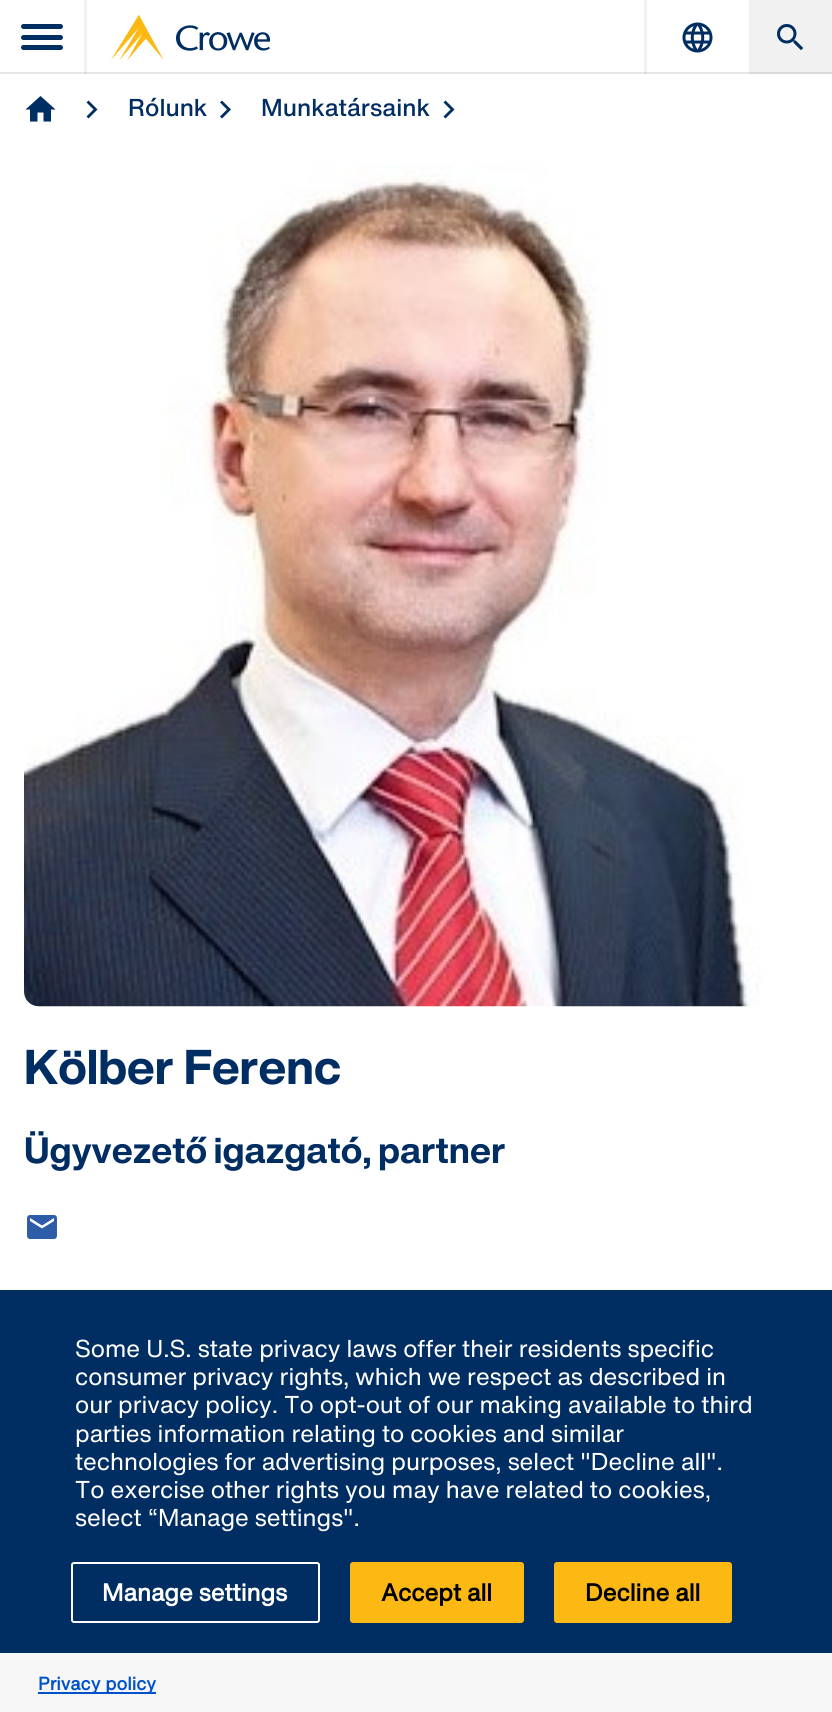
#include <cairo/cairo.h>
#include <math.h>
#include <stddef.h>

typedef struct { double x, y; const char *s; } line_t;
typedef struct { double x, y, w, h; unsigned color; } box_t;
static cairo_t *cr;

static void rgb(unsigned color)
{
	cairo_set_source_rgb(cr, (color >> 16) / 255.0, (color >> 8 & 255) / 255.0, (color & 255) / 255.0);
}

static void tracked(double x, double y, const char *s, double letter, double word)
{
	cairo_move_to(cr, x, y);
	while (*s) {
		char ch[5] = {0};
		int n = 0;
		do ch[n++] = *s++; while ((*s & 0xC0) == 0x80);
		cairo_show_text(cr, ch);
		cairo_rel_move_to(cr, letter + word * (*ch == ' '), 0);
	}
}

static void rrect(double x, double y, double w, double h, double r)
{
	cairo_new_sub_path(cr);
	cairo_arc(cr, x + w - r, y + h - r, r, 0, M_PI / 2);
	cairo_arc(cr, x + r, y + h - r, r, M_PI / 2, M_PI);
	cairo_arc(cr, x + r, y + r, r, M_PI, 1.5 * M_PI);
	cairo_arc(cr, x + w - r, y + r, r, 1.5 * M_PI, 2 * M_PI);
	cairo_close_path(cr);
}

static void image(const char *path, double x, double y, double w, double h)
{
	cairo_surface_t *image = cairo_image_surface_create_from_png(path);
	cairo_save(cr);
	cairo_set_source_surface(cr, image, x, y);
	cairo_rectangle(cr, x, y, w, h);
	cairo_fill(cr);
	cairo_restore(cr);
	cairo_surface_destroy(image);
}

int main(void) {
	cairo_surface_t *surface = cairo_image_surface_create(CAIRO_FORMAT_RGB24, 832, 1712);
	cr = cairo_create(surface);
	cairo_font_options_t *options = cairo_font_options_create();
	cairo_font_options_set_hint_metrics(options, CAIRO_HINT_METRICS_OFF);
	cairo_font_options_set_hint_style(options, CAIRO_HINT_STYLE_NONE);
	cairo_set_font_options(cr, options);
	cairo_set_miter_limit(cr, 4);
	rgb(0xffffff);
	cairo_paint(cr);
	{
		static const box_t items[] = {
			{0, 72, 749, 2, 0xe6e6e6},
			{84, 0, 3, 74, 0xf1f1f1},
			{84, 72, 3, 2, 0xd9d9d9},
		};
		for (size_t i = 0; i < sizeof items / sizeof *items; i++) {
			rgb(items[i].color);
			cairo_rectangle(cr, items[i].x, items[i].y, items[i].w, items[i].h);
			cairo_fill(cr);
		}
	}
	rgb(0x002d62);
	rrect(21, 24, 42, 5, 2.5);
	cairo_fill(cr);
	rrect(21, 35, 42, 5, 2.5);
	cairo_fill(cr);
	rrect(21, 45, 42, 5, 2.5);
	cairo_fill(cr);
	rgb(0xf1f1f1);
	cairo_rectangle(cr, 644, 0, 3, 74);
	cairo_fill(cr);
	rgb(0xd9d9d9);
	cairo_rectangle(cr, 644, 72, 3, 2);
	cairo_fill(cr);
	image("img/1.png", 111, 15, 159, 45);
	image("img/2.png", 682, 22, 31, 31);
	rgb(0xf1f1f1);
	cairo_rectangle(cr, 749, 0, 83, 72);
	cairo_fill(cr);
	rgb(0xd9d9d9);
	cairo_rectangle(cr, 749, 72, 83, 2);
	cairo_fill(cr);
	image("img/3.png", 777, 24, 27, 27);
	rgb(0x002d62);
	cairo_new_path(cr);
	cairo_move_to(cr, 37.5, 121.5);
	cairo_line_to(cr, 30, 121.5);
	cairo_line_to(cr, 30, 109.5);
	cairo_line_to(cr, 25.5, 109.5);
	cairo_line_to(cr, 40.5, 96);
	cairo_line_to(cr, 55.5, 109.5);
	cairo_line_to(cr, 51, 109.5);
	cairo_line_to(cr, 51, 121.5);
	cairo_line_to(cr, 43.5, 121.5);
	cairo_line_to(cr, 43.5, 112.5);
	cairo_line_to(cr, 37.5, 112.5);
	cairo_close_path(cr);
	cairo_fill(cr);
	cairo_new_path(cr);
	cairo_move_to(cr, 86.5, 116.5);
	cairo_line_to(cr, 93.5, 109.5);
	cairo_line_to(cr, 86.5, 102.5);
	cairo_line_to(cr, 88.5, 100.5);
	cairo_line_to(cr, 97.5, 109.5);
	cairo_line_to(cr, 88.5, 118.5);
	cairo_close_path(cr);
	cairo_fill(cr);
	cairo_new_path(cr);
	cairo_move_to(cr, 220, 116.5);
	cairo_line_to(cr, 227, 109.5);
	cairo_line_to(cr, 220, 102.5);
	cairo_line_to(cr, 222, 100.5);
	cairo_line_to(cr, 231, 109.5);
	cairo_line_to(cr, 222, 118.5);
	cairo_close_path(cr);
	cairo_fill(cr);
	cairo_new_path(cr);
	cairo_move_to(cr, 443.5, 116.5);
	cairo_line_to(cr, 450.5, 109.5);
	cairo_line_to(cr, 443.5, 102.5);
	cairo_line_to(cr, 445.5, 100.5);
	cairo_line_to(cr, 454.5, 109.5);
	cairo_line_to(cr, 445.5, 118.5);
	cairo_close_path(cr);
	cairo_fill(cr);
	image("img/4.png", 24, 165, 737, 842);
	image("img/5.png", 27, 1215, 30, 24);
	cairo_rectangle(cr, 0, 1290, 832, 363);
	cairo_fill(cr);
	rrect(72, 1563, 247, 59, 2);
	rgb(0xffffff);
	cairo_stroke(cr);
	rgb(0xfdb913);
	rrect(351, 1563, 172, 59, 2);
	cairo_fill_preserve(cr);
	cairo_stroke(cr);
	rrect(555, 1563, 176, 59, 2);
	cairo_fill_preserve(cr);
	cairo_stroke(cr);
	rgb(0xf7f7f7);
	cairo_rectangle(cr, 0, 1653, 832, 59);
	cairo_fill(cr);
	rgb(0x0052cc);
	cairo_rectangle(cr, 38, 1692, 118, 2);
	cairo_fill(cr);
	cairo_select_font_face(cr, "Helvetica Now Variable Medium", CAIRO_FONT_SLANT_NORMAL, CAIRO_FONT_WEIGHT_NORMAL);
	cairo_set_font_size(cr, 24);
	rgb(0x002d62);
	cairo_move_to(cr, 128, 116);
	cairo_show_text(cr, "Rólunk");
	cairo_move_to(cr, 261, 116);
	cairo_show_text(cr, "Munkatársaink");
	cairo_select_font_face(cr, "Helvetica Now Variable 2", CAIRO_FONT_SLANT_NORMAL, CAIRO_FONT_WEIGHT_BOLD);
	cairo_set_font_size(cr, 48);
	cairo_move_to(cr, 24, 1084);
	cairo_show_text(cr, "Kölber Ferenc");
	cairo_select_font_face(cr, "Helvetica Now Variable", CAIRO_FONT_SLANT_NORMAL, CAIRO_FONT_WEIGHT_BOLD);
	cairo_set_font_size(cr, 36);
	tracked(24, 1163, "Ügyvezető igazgató, partner", 0, -2);
	cairo_select_font_face(cr, "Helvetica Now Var", CAIRO_FONT_SLANT_NORMAL, CAIRO_FONT_WEIGHT_NORMAL);
	cairo_set_font_size(cr, 24);
	rgb(0xffffff);
	{
		static const line_t items[] = {
			{75, 1357, "Some U.S. state privacy laws offer their residents specific"},
			{75, 1385, "consumer privacy rights, which we respect as described in"},
			{75, 1413, "our privacy policy. To opt-out of our making available to third"},
			{75, 1442, "parties information relating to cookies and similar"},
			{75, 1470, "technologies for advertising purposes, select \"Decline all\"."},
			{75, 1498, "To exercise other rights you may have related to cookies,"},
			{75, 1526, "select “Manage settings\"."},
		};
		for (size_t i = 0; i < sizeof items / sizeof *items; i++) {
			cairo_move_to(cr, items[i].x, items[i].y);
			cairo_show_text(cr, items[i].s);
		}
	}
	cairo_select_font_face(cr, "Helvetica Now Var", CAIRO_FONT_SLANT_NORMAL, CAIRO_FONT_WEIGHT_BOLD);
	cairo_move_to(cr, 102, 1601);
	cairo_show_text(cr, "Manage settings");
	rgb(0x000000);
	cairo_move_to(cr, 381, 1601);
	cairo_show_text(cr, "Accept all");
	cairo_move_to(cr, 585, 1601);
	cairo_show_text(cr, "Decline all");
	cairo_select_font_face(cr, "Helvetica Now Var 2", CAIRO_FONT_SLANT_NORMAL, CAIRO_FONT_WEIGHT_BOLD);
	cairo_set_font_size(cr, 18);
	rgb(0x0052cc);
	cairo_move_to(cr, 38, 1690);
	cairo_show_text(cr, "Privacy policy");
	cairo_surface_write_to_png(surface, "page.png");
	cairo_font_options_destroy(options);
	cairo_destroy(cr);
	cairo_surface_destroy(surface);
	return 0;
}
